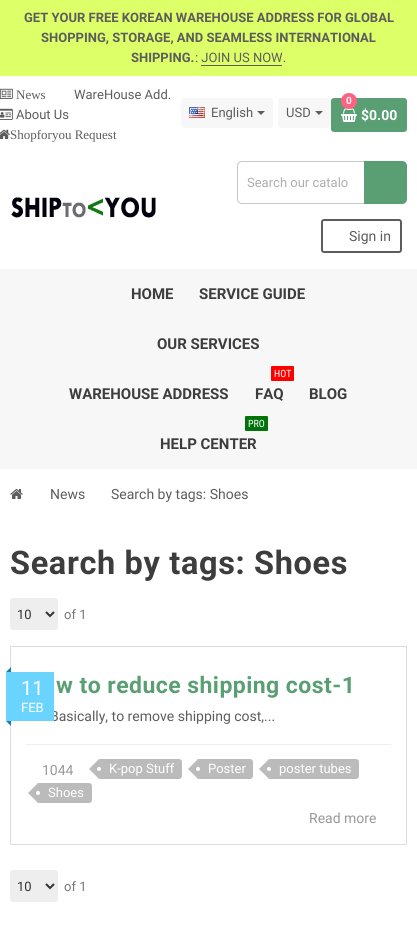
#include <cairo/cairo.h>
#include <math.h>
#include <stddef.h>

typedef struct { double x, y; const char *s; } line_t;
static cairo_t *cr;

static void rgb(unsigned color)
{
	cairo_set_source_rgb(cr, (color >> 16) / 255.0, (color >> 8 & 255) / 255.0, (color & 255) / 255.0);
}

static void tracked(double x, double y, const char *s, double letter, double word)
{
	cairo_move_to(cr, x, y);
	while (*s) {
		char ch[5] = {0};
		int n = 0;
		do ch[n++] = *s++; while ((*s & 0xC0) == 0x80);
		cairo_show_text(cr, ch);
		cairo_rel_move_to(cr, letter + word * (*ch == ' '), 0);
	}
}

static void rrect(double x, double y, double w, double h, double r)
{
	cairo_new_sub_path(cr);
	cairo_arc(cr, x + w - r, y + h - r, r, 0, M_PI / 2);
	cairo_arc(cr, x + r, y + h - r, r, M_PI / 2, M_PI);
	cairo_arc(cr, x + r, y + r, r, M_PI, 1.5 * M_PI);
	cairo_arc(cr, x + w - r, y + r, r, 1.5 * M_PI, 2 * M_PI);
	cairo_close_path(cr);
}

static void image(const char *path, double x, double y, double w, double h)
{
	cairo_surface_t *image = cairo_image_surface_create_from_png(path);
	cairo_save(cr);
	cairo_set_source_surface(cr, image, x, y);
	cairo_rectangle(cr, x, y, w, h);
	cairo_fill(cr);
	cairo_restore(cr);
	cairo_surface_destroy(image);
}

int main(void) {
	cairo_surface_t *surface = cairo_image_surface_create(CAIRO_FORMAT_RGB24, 417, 928);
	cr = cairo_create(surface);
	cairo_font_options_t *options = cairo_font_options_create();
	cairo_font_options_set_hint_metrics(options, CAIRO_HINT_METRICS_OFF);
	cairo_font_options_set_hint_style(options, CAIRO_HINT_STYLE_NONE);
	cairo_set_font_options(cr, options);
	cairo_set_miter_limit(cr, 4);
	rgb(0xffffff);
	cairo_paint(cr);
	rgb(0xddff68);
	cairo_rectangle(cr, 0, 0, 417, 76);
	cairo_fill(cr);
	rgb(0x5d5d5d);
	cairo_rectangle(cr, 201, 65, 81, 1);
	cairo_fill(cr);
	image("img/1.png", 0, 88, 13, 11);
	image("img/2.png", 0, 108, 13, 12);
	image("img/3.png", 0, 129, 10, 10);
	rgb(0xf7f7f7);
	rrect(181, 98, 92, 30, 3);
	cairo_fill(cr);
	image("img/4.png", 189, 107, 16, 11);
	rgb(0x5d5d5d);
	cairo_new_path(cr);
	cairo_move_to(cr, 257, 111);
	cairo_line_to(cr, 265, 111);
	cairo_line_to(cr, 261, 115);
	cairo_close_path(cr);
	cairo_fill(cr);
	rgb(0xf7f7f7);
	rrect(278, 98, 53, 30, 3);
	cairo_fill(cr);
	rgb(0x5d5d5d);
	cairo_new_path(cr);
	cairo_move_to(cr, 315, 111);
	cairo_line_to(cr, 323, 111);
	cairo_line_to(cr, 319, 115);
	cairo_close_path(cr);
	cairo_fill(cr);
	rgb(0x5a9e74);
	rrect(331, 98, 76, 34, 3);
	cairo_fill(cr);
	image("img/5.png", 341, 108, 16, 14);
	rgb(0xfd6282);
	cairo_arc(cr, 349, 101, 8, 0, 2 * M_PI);
	cairo_fill(cr);
	image("img/6.png", 11, 197, 145, 21);
	rrect(237.5, 161.5, 168, 42, 4.5);
	rgb(0xc7c7c7);
	cairo_set_line_width(cr, 1);
	cairo_stroke(cr);
	rgb(0x5a9e74);
	cairo_new_path(cr);
	cairo_move_to(cr, 364, 161);
	cairo_line_to(cr, 402, 161);
	cairo_curve_to(cr, 405, 161, 407, 163, 407, 166);
	cairo_line_to(cr, 407, 199);
	cairo_curve_to(cr, 407, 202, 405, 204, 402, 204);
	cairo_line_to(cr, 364, 204);
	cairo_close_path(cr);
	cairo_fill(cr);
	rrect(322, 220, 79, 32, 2);
	rgb(0x5d5d5d);
	cairo_set_line_width(cr, 2);
	cairo_stroke(cr);
	rgb(0xf7f7f7);
	cairo_rectangle(cr, 0, 269, 417, 200);
	cairo_fill(cr);
	rgb(0xff0000);
	rrect(271, 366, 23, 15, 1);
	cairo_fill(cr);
	rgb(0x007409);
	rrect(245, 416, 23, 15, 1);
	cairo_fill(cr);
	image("img/7.png", 10, 489, 13, 10);
	rgb(0xeeeeee);
	rrect(10, 598, 48, 32, 3);
	cairo_fill(cr);
	cairo_new_path(cr);
	cairo_move_to(cr, 46, 612);
	cairo_line_to(cr, 50, 616);
	cairo_line_to(cr, 54, 612);
	rgb(0x333333);
	cairo_stroke(cr);
	cairo_rectangle(cr, 10.5, 646.5, 396, 198);
	rgb(0xdddddd);
	cairo_set_line_width(cr, 1);
	cairo_stroke(cr);
	rgb(0xeeeeee);
	cairo_rectangle(cr, 26, 744, 365, 1);
	cairo_fill(cr);
	rgb(0xbbbbbb);
	rrect(97, 759, 85, 20, 3);
	cairo_fill(cr);
	cairo_new_path(cr);
	cairo_move_to(cr, 97, 761);
	cairo_line_to(cr, 97, 777);
	cairo_line_to(cr, 89, 769);
	cairo_close_path(cr);
	cairo_fill(cr);
	rgb(0xffffff);
	cairo_arc(cr, 99, 769, 2, 0, 2 * M_PI);
	cairo_fill(cr);
	rgb(0xbbbbbb);
	rrect(196, 759, 57, 20, 3);
	cairo_fill(cr);
	cairo_new_path(cr);
	cairo_move_to(cr, 196, 761);
	cairo_line_to(cr, 196, 777);
	cairo_line_to(cr, 188, 769);
	cairo_close_path(cr);
	cairo_fill(cr);
	rgb(0xffffff);
	cairo_arc(cr, 198, 769, 2, 0, 2 * M_PI);
	cairo_fill(cr);
	rgb(0xbbbbbb);
	rrect(267, 759, 92, 20, 3);
	cairo_fill(cr);
	cairo_new_path(cr);
	cairo_move_to(cr, 267, 761);
	cairo_line_to(cr, 267, 777);
	cairo_line_to(cr, 259, 769);
	cairo_close_path(cr);
	cairo_fill(cr);
	rgb(0xffffff);
	cairo_arc(cr, 269, 769, 2, 0, 2 * M_PI);
	cairo_fill(cr);
	rgb(0xbbbbbb);
	rrect(36, 783, 56, 20, 3);
	cairo_fill(cr);
	cairo_new_path(cr);
	cairo_move_to(cr, 36, 785);
	cairo_line_to(cr, 36, 801);
	cairo_line_to(cr, 28, 793);
	cairo_close_path(cr);
	cairo_fill(cr);
	rgb(0xffffff);
	cairo_arc(cr, 38, 793, 2, 0, 2 * M_PI);
	cairo_fill(cr);
	rgb(0xeeeeee);
	rrect(10, 870, 48, 32, 3);
	cairo_fill(cr);
	cairo_new_path(cr);
	cairo_move_to(cr, 46, 884);
	cairo_line_to(cr, 50, 888);
	cairo_line_to(cr, 54, 884);
	rgb(0x333333);
	cairo_set_line_width(cr, 2);
	cairo_stroke(cr);
	cairo_select_font_face(cr, "Roboto", CAIRO_FONT_SLANT_NORMAL, CAIRO_FONT_WEIGHT_BOLD);
	cairo_set_font_size(cr, 13);
	rgb(0x5d5d5d);
	{
		static const line_t items[] = {
			{24, 22, "GET YOUR FREE KOREAN WAREHOUSE ADDRESS FOR GLOBAL"},
			{41, 42, "SHOPPING, STORAGE, AND SEAMLESS INTERNATIONAL"},
			{131, 62, "SHIPPING."},
		};
		for (size_t i = 0; i < sizeof items / sizeof *items; i++) {
			cairo_move_to(cr, items[i].x, items[i].y);
			cairo_show_text(cr, items[i].s);
		}
	}
	cairo_select_font_face(cr, "Roboto", CAIRO_FONT_SLANT_NORMAL, CAIRO_FONT_WEIGHT_NORMAL);
	cairo_move_to(cr, 195, 62);
	cairo_show_text(cr, ": JOIN US NOW.");
	cairo_select_font_face(cr, "Liberation Serif", CAIRO_FONT_SLANT_NORMAL, CAIRO_FONT_WEIGHT_NORMAL);
	cairo_move_to(cr, 16, 99);
	cairo_show_text(cr, "News");
	cairo_select_font_face(cr, "Roboto", CAIRO_FONT_SLANT_NORMAL, CAIRO_FONT_WEIGHT_NORMAL);
	cairo_move_to(cr, 74, 99);
	cairo_show_text(cr, "WareHouse Add.");
	cairo_move_to(cr, 16, 119);
	cairo_show_text(cr, "About Us");
	cairo_select_font_face(cr, "Liberation Serif", CAIRO_FONT_SLANT_NORMAL, CAIRO_FONT_WEIGHT_NORMAL);
	cairo_move_to(cr, 10, 139);
	cairo_show_text(cr, "Shopforyou Request");
	cairo_select_font_face(cr, "Roboto", CAIRO_FONT_SLANT_NORMAL, CAIRO_FONT_WEIGHT_NORMAL);
	cairo_move_to(cr, 211, 117);
	cairo_show_text(cr, "English");
	cairo_move_to(cr, 286, 117);
	cairo_show_text(cr, "USD");
	cairo_select_font_face(cr, "Roboto", CAIRO_FONT_SLANT_NORMAL, CAIRO_FONT_WEIGHT_BOLD);
	cairo_set_font_size(cr, 10);
	rgb(0xffffff);
	cairo_move_to(cr, 346, 104);
	cairo_show_text(cr, "0");
	cairo_set_font_size(cr, 14);
	cairo_move_to(cr, 361, 120);
	cairo_show_text(cr, "$0.00");
	cairo_select_font_face(cr, "Roboto", CAIRO_FONT_SLANT_NORMAL, CAIRO_FONT_WEIGHT_NORMAL);
	cairo_set_font_size(cr, 13);
	rgb(0xaeaeae);
	cairo_move_to(cr, 247, 187);
	cairo_show_text(cr, "Search our catalo");
	cairo_set_font_size(cr, 14);
	rgb(0x5d5d5d);
	cairo_move_to(cr, 349, 241);
	cairo_show_text(cr, "Sign in");
	cairo_select_font_face(cr, "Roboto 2", CAIRO_FONT_SLANT_NORMAL, CAIRO_FONT_WEIGHT_BOLD);
	cairo_set_font_size(cr, 15);
	rgb(0x3d3d3d);
	{
		static const line_t items[] = {
			{131, 299, "HOME"},
			{199, 299, "SERVICE GUIDE"},
			{157, 349, "OUR SERVICES"},
			{69, 399, "WAREHOUSE ADDRESS"},
		};
		for (size_t i = 0; i < sizeof items / sizeof *items; i++) {
			cairo_move_to(cr, items[i].x, items[i].y);
			cairo_show_text(cr, items[i].s);
		}
	}
	cairo_select_font_face(cr, "Roboto Condensed", CAIRO_FONT_SLANT_NORMAL, CAIRO_FONT_WEIGHT_NORMAL);
	cairo_set_font_size(cr, 10);
	rgb(0xffffff);
	cairo_move_to(cr, 274, 377);
	cairo_show_text(cr, "HOT");
	cairo_select_font_face(cr, "Roboto 2", CAIRO_FONT_SLANT_NORMAL, CAIRO_FONT_WEIGHT_BOLD);
	cairo_set_font_size(cr, 15);
	rgb(0x3d3d3d);
	cairo_move_to(cr, 255, 399);
	cairo_show_text(cr, "FAQ");
	cairo_move_to(cr, 309, 399);
	cairo_show_text(cr, "BLOG");
	cairo_select_font_face(cr, "Roboto Condensed", CAIRO_FONT_SLANT_NORMAL, CAIRO_FONT_WEIGHT_NORMAL);
	cairo_set_font_size(cr, 10);
	rgb(0xffffff);
	cairo_move_to(cr, 248, 427);
	cairo_show_text(cr, "PRO");
	cairo_select_font_face(cr, "Roboto 2", CAIRO_FONT_SLANT_NORMAL, CAIRO_FONT_WEIGHT_BOLD);
	cairo_set_font_size(cr, 15);
	rgb(0x3d3d3d);
	cairo_move_to(cr, 160, 449);
	cairo_show_text(cr, "HELP CENTER");
	cairo_select_font_face(cr, "Roboto", CAIRO_FONT_SLANT_NORMAL, CAIRO_FONT_WEIGHT_NORMAL);
	cairo_set_font_size(cr, 14);
	rgb(0x5d5d5d);
	cairo_move_to(cr, 50, 499);
	cairo_show_text(cr, "News");
	cairo_move_to(cr, 111, 499);
	cairo_show_text(cr, "Search by tags: Shoes");
	cairo_select_font_face(cr, "Roboto 2", CAIRO_FONT_SLANT_NORMAL, CAIRO_FONT_WEIGHT_BOLD);
	cairo_set_font_size(cr, 32.5);
	rgb(0x3d3d3d);
	tracked(10, 574, "Search by tags: Shoes", 0.65, 0);
	cairo_select_font_face(cr, "Roboto", CAIRO_FONT_SLANT_NORMAL, CAIRO_FONT_WEIGHT_NORMAL);
	cairo_set_font_size(cr, 13);
	rgb(0x333333);
	cairo_move_to(cr, 17, 619);
	cairo_show_text(cr, "10");
	rgb(0x777777);
	cairo_move_to(cr, 64, 619);
	cairo_show_text(cr, "of 1");
	cairo_select_font_face(cr, "Roboto 2", CAIRO_FONT_SLANT_NORMAL, CAIRO_FONT_WEIGHT_BOLD);
	cairo_set_font_size(cr, 23);
	rgb(0x5a9e74);
	tracked(56, 693, "w to reduce shipping cost-1", 0.45, 0);
	cairo_select_font_face(cr, "Roboto", CAIRO_FONT_SLANT_NORMAL, CAIRO_FONT_WEIGHT_NORMAL);
	cairo_set_font_size(cr, 14);
	rgb(0x5d5d5d);
	cairo_move_to(cr, 50, 721);
	cairo_show_text(cr, "Basically, to remove shipping cost,...");
	rgb(0x6ad4ff);
	cairo_rectangle(cr, 6, 672, 48, 49);
	cairo_fill(cr);
	rgb(0x1082b0);
	cairo_new_path(cr);
	cairo_move_to(cr, 6, 721);
	cairo_line_to(cr, 11, 721);
	cairo_line_to(cr, 11, 726);
	cairo_close_path(cr);
	cairo_move_to(cr, 11, 672);
	cairo_line_to(cr, 6, 672);
	cairo_line_to(cr, 11, 667);
	cairo_close_path(cr);
	cairo_fill(cr);
	cairo_set_font_size(cr, 13);
	rgb(0xffffff);
	cairo_move_to(cr, 21, 712);
	cairo_show_text(cr, "FEB");
	cairo_set_font_size(cr, 20);
	cairo_move_to(cr, 21, 695);
	cairo_show_text(cr, "11");
	cairo_set_font_size(cr, 14);
	rgb(0x999999);
	cairo_move_to(cr, 42, 775);
	cairo_show_text(cr, "1044");
	cairo_set_font_size(cr, 13);
	rgb(0xffffff);
	{
		static const line_t items[] = {
			{109, 773, "K-pop Stuff"},
			{208, 773, "Poster"},
			{279, 773, "poster tubes"},
			{48, 797, "Shoes"},
		};
		for (size_t i = 0; i < sizeof items / sizeof *items; i++) {
			cairo_move_to(cr, items[i].x, items[i].y);
			cairo_show_text(cr, items[i].s);
		}
	}
	cairo_set_font_size(cr, 14);
	rgb(0x999999);
	cairo_move_to(cr, 309, 823);
	cairo_show_text(cr, "Read more");
	cairo_set_font_size(cr, 13);
	rgb(0x333333);
	cairo_move_to(cr, 17, 891);
	cairo_show_text(cr, "10");
	rgb(0x777777);
	cairo_move_to(cr, 64, 891);
	cairo_show_text(cr, "of 1");
	cairo_surface_write_to_png(surface, "page.png");
	cairo_font_options_destroy(options);
	cairo_destroy(cr);
	cairo_surface_destroy(surface);
	return 0;
}
